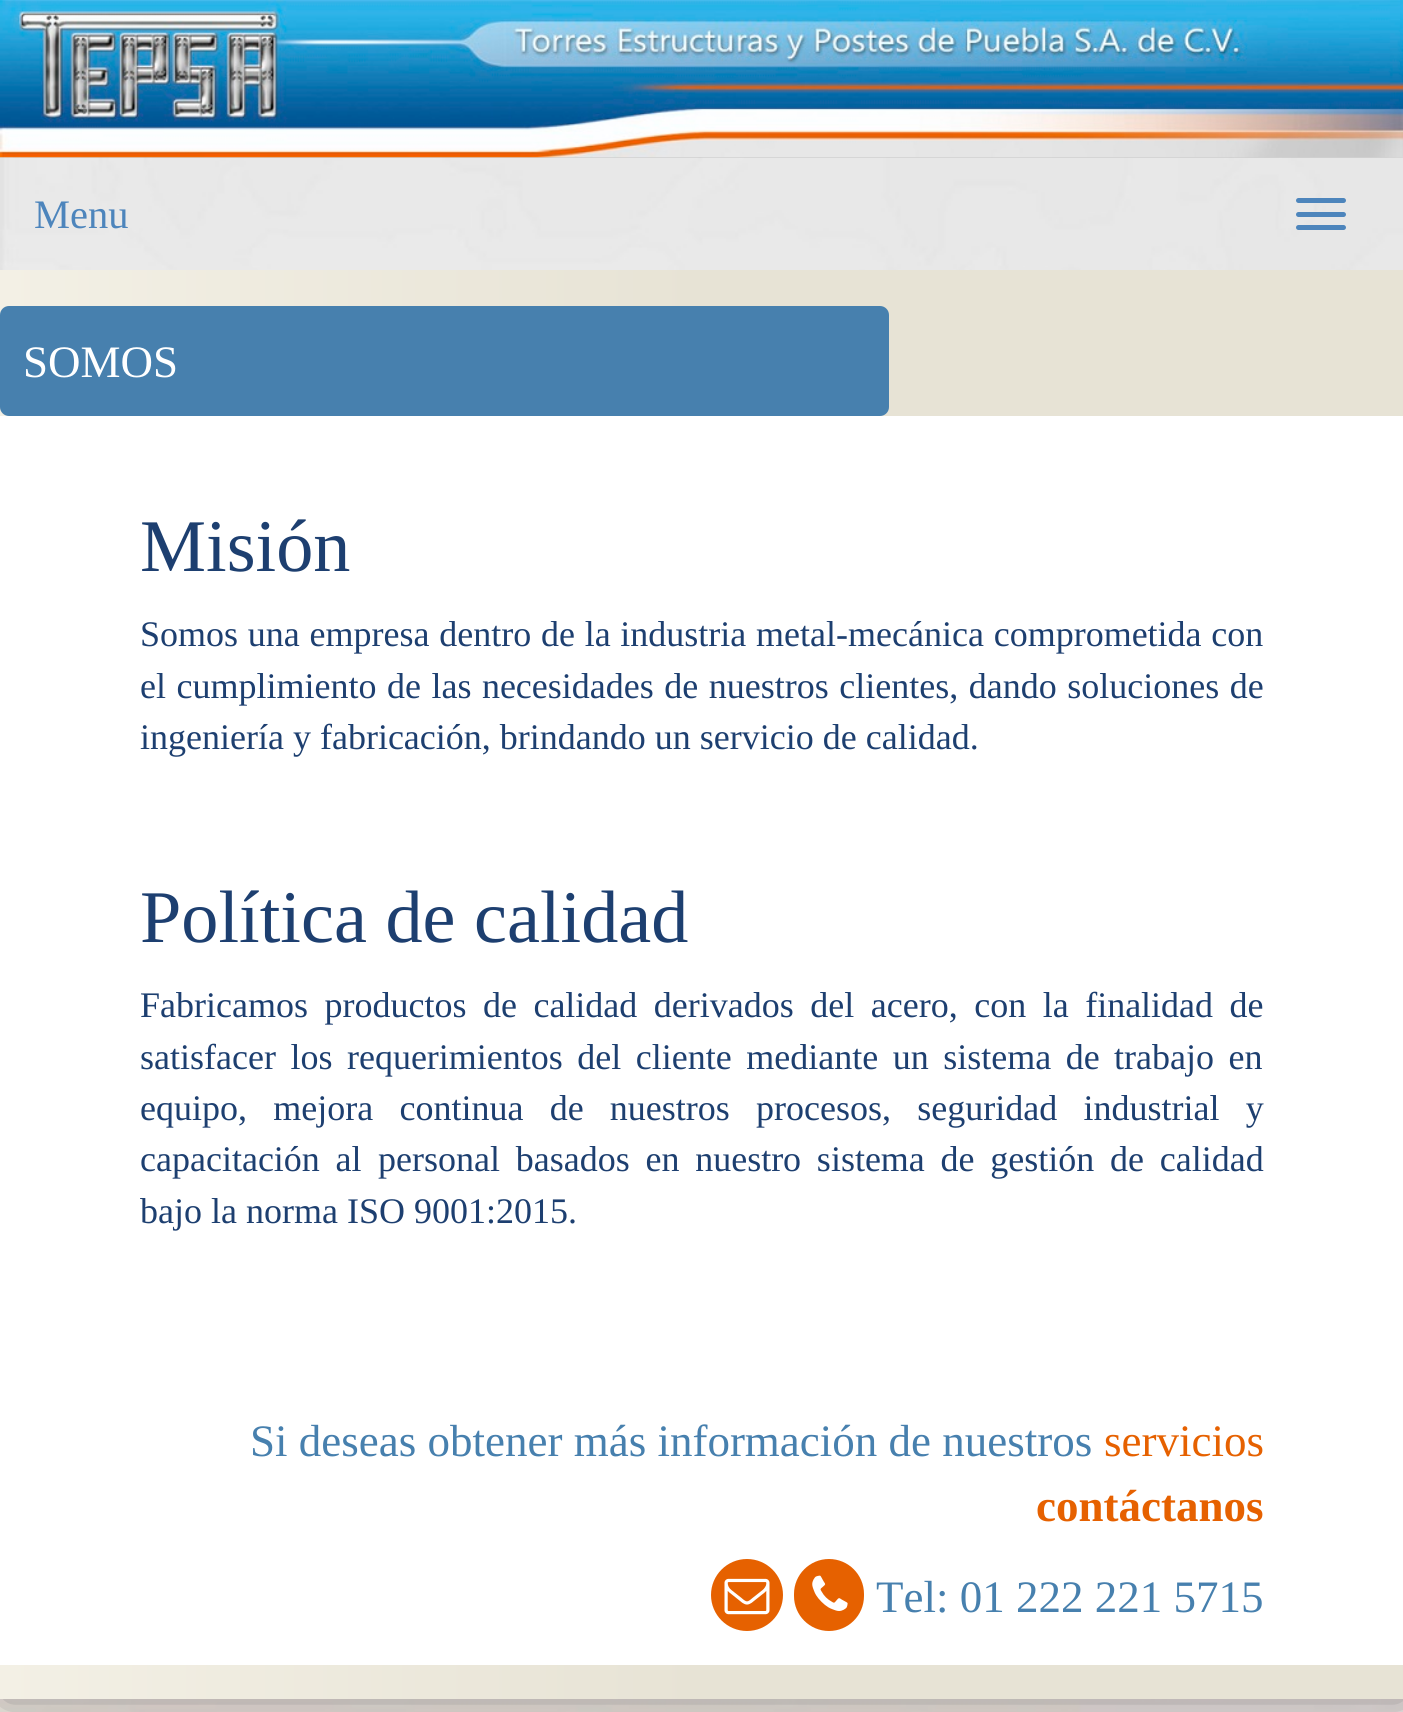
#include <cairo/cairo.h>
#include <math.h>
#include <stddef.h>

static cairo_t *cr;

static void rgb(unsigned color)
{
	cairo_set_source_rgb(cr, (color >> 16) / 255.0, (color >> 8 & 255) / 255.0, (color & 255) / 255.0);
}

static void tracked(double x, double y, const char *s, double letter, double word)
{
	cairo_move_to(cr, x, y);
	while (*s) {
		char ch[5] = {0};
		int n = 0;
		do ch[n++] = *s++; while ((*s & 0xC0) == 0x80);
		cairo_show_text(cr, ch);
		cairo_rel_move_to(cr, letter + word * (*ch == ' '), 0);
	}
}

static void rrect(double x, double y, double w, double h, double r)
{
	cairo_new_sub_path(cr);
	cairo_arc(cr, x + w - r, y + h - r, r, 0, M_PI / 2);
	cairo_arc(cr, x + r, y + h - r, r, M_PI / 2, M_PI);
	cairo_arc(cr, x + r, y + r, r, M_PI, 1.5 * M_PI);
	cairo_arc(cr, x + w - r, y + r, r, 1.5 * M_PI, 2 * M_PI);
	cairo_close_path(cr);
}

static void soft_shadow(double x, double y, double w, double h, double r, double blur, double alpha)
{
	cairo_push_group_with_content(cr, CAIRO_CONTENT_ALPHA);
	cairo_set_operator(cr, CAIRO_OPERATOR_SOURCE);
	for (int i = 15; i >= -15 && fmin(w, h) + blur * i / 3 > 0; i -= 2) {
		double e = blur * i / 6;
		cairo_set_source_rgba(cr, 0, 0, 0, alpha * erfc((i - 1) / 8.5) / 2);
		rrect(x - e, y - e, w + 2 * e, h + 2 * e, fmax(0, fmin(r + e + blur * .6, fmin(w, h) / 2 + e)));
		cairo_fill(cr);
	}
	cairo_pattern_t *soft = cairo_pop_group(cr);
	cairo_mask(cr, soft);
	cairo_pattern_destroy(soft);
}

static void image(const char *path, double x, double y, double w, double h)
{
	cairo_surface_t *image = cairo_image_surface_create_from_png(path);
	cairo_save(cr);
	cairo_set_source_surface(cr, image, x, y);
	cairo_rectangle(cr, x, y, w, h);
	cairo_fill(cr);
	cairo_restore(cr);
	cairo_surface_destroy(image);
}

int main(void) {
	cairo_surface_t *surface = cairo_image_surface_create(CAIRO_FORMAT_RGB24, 1403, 1712);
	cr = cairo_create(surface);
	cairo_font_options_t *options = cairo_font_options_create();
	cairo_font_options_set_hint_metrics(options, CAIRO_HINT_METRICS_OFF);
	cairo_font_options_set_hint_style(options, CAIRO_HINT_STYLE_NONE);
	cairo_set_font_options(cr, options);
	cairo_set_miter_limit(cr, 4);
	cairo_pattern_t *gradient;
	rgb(0xffffff);
	cairo_paint(cr);
	image("img/1.png", 0, 157, 1403, 1555);
	rgb(0x888888);
	soft_shadow(2, -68, 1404, 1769, 0, 22.5, 1);
	image("img/3.png", 0, 157, 1403, 113);
	image("img/2.png", 0, 0, 1403, 158);
	rgb(0x4d85bc);
	rrect(1296, 198, 50, 5, 2.5);
	cairo_fill(cr);
	rrect(1296, 212, 50, 5, 2.5);
	cairo_fill(cr);
	rrect(1296, 225, 50, 5, 2.5);
	cairo_fill(cr);
	gradient = cairo_pattern_create_linear(0, 984, 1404, 984);
	cairo_pattern_add_color_stop_rgba(gradient, 0, 0.953, 0.941, 0.898, 1);
	cairo_pattern_add_color_stop_rgba(gradient, 0.5, 0.906, 0.89, 0.835, 1);
	cairo_pattern_add_color_stop_rgba(gradient, 1, 0.906, 0.89, 0.835, 1);
	cairo_set_source(cr, gradient);
	cairo_pattern_destroy(gradient);
	cairo_rectangle(cr, 0, 270, 1403, 1429);
	cairo_fill(cr);
	rgb(0x4780ae);
	rrect(0, 306, 889, 110, 9);
	cairo_fill(cr);
	rgb(0xffffff);
	cairo_rectangle(cr, 0, 416, 1403, 1249);
	cairo_fill(cr);
	rgb(0xe66100);
	cairo_arc(cr, 747, 1595, 36, 0, 2 * M_PI);
	cairo_fill(cr);
	image("img/4.png", 724, 1578, 46, 37);
	rrect(794, 1559, 70, 72, 35);
	cairo_fill(cr);
	image("img/5.png", 812, 1575, 36, 36);
	cairo_select_font_face(cr, "Liberation Serif", CAIRO_FONT_SLANT_NORMAL, CAIRO_FONT_WEIGHT_NORMAL);
	cairo_set_font_size(cr, 40.5);
	rgb(0x4d85bc);
	cairo_move_to(cr, 34, 228);
	cairo_show_text(cr, "Menu");
	cairo_set_font_size(cr, 45);
	rgb(0xffffff);
	cairo_move_to(cr, 23, 377);
	cairo_show_text(cr, "SOMOS");
	cairo_set_font_size(cr, 74.25);
	rgb(0x1d3f70);
	cairo_move_to(cr, 140, 571);
	cairo_show_text(cr, "Misión");
	cairo_set_font_size(cr, 36);
	tracked(140, 646, "Somos una empresa dentro de la industria metal-mecánica comprometida con", 0, 0.75);
	tracked(140, 698, "el cumplimiento de las necesidades de nuestros clientes, dando soluciones de", 0, 1.5);
	cairo_move_to(cr, 140, 749);
	cairo_show_text(cr, "ingeniería y fabricación, brindando un servicio de calidad.");
	cairo_set_font_size(cr, 74.25);
	cairo_move_to(cr, 140, 942);
	cairo_show_text(cr, "Política de calidad");
	cairo_set_font_size(cr, 36);
	tracked(140, 1017, "Fabricamos productos de calidad derivados del acero, con la finalidad de", 0, 7.5);
	tracked(140, 1069, "satisfacer los requerimientos del cliente mediante un sistema de trabajo en", 0, 5.5);
	tracked(140, 1120, "equipo, mejora continua de nuestros procesos, seguridad industrial y", 0, 17.25);
	tracked(140, 1171, "capacitación al", 0, 6.75);
	tracked(378, 1171, "personal basados en nuestro sistema de gestión de calidad", 0, 6.75);
	cairo_move_to(cr, 140, 1223);
	cairo_show_text(cr, "bajo la norma ISO 9001:2015.");
	cairo_set_font_size(cr, 45);
	rgb(0x4780ae);
	cairo_move_to(cr, 250, 1456);
	cairo_show_text(cr, "Si deseas obtener más información de nuestros");
	rgb(0xe66100);
	cairo_move_to(cr, 1104, 1456);
	cairo_show_text(cr, "servicios");
	cairo_select_font_face(cr, "Liberation Serif", CAIRO_FONT_SLANT_NORMAL, CAIRO_FONT_WEIGHT_BOLD);
	cairo_move_to(cr, 1036, 1521);
	cairo_show_text(cr, "contáctanos");
	cairo_select_font_face(cr, "Liberation Serif", CAIRO_FONT_SLANT_NORMAL, CAIRO_FONT_WEIGHT_NORMAL);
	rgb(0x4780ae);
	cairo_move_to(cr, 876, 1612);
	cairo_show_text(cr, "Tel: 01 222 221 5715");
	cairo_surface_write_to_png(surface, "page.png");
	cairo_font_options_destroy(options);
	cairo_destroy(cr);
	cairo_surface_destroy(surface);
	return 0;
}
